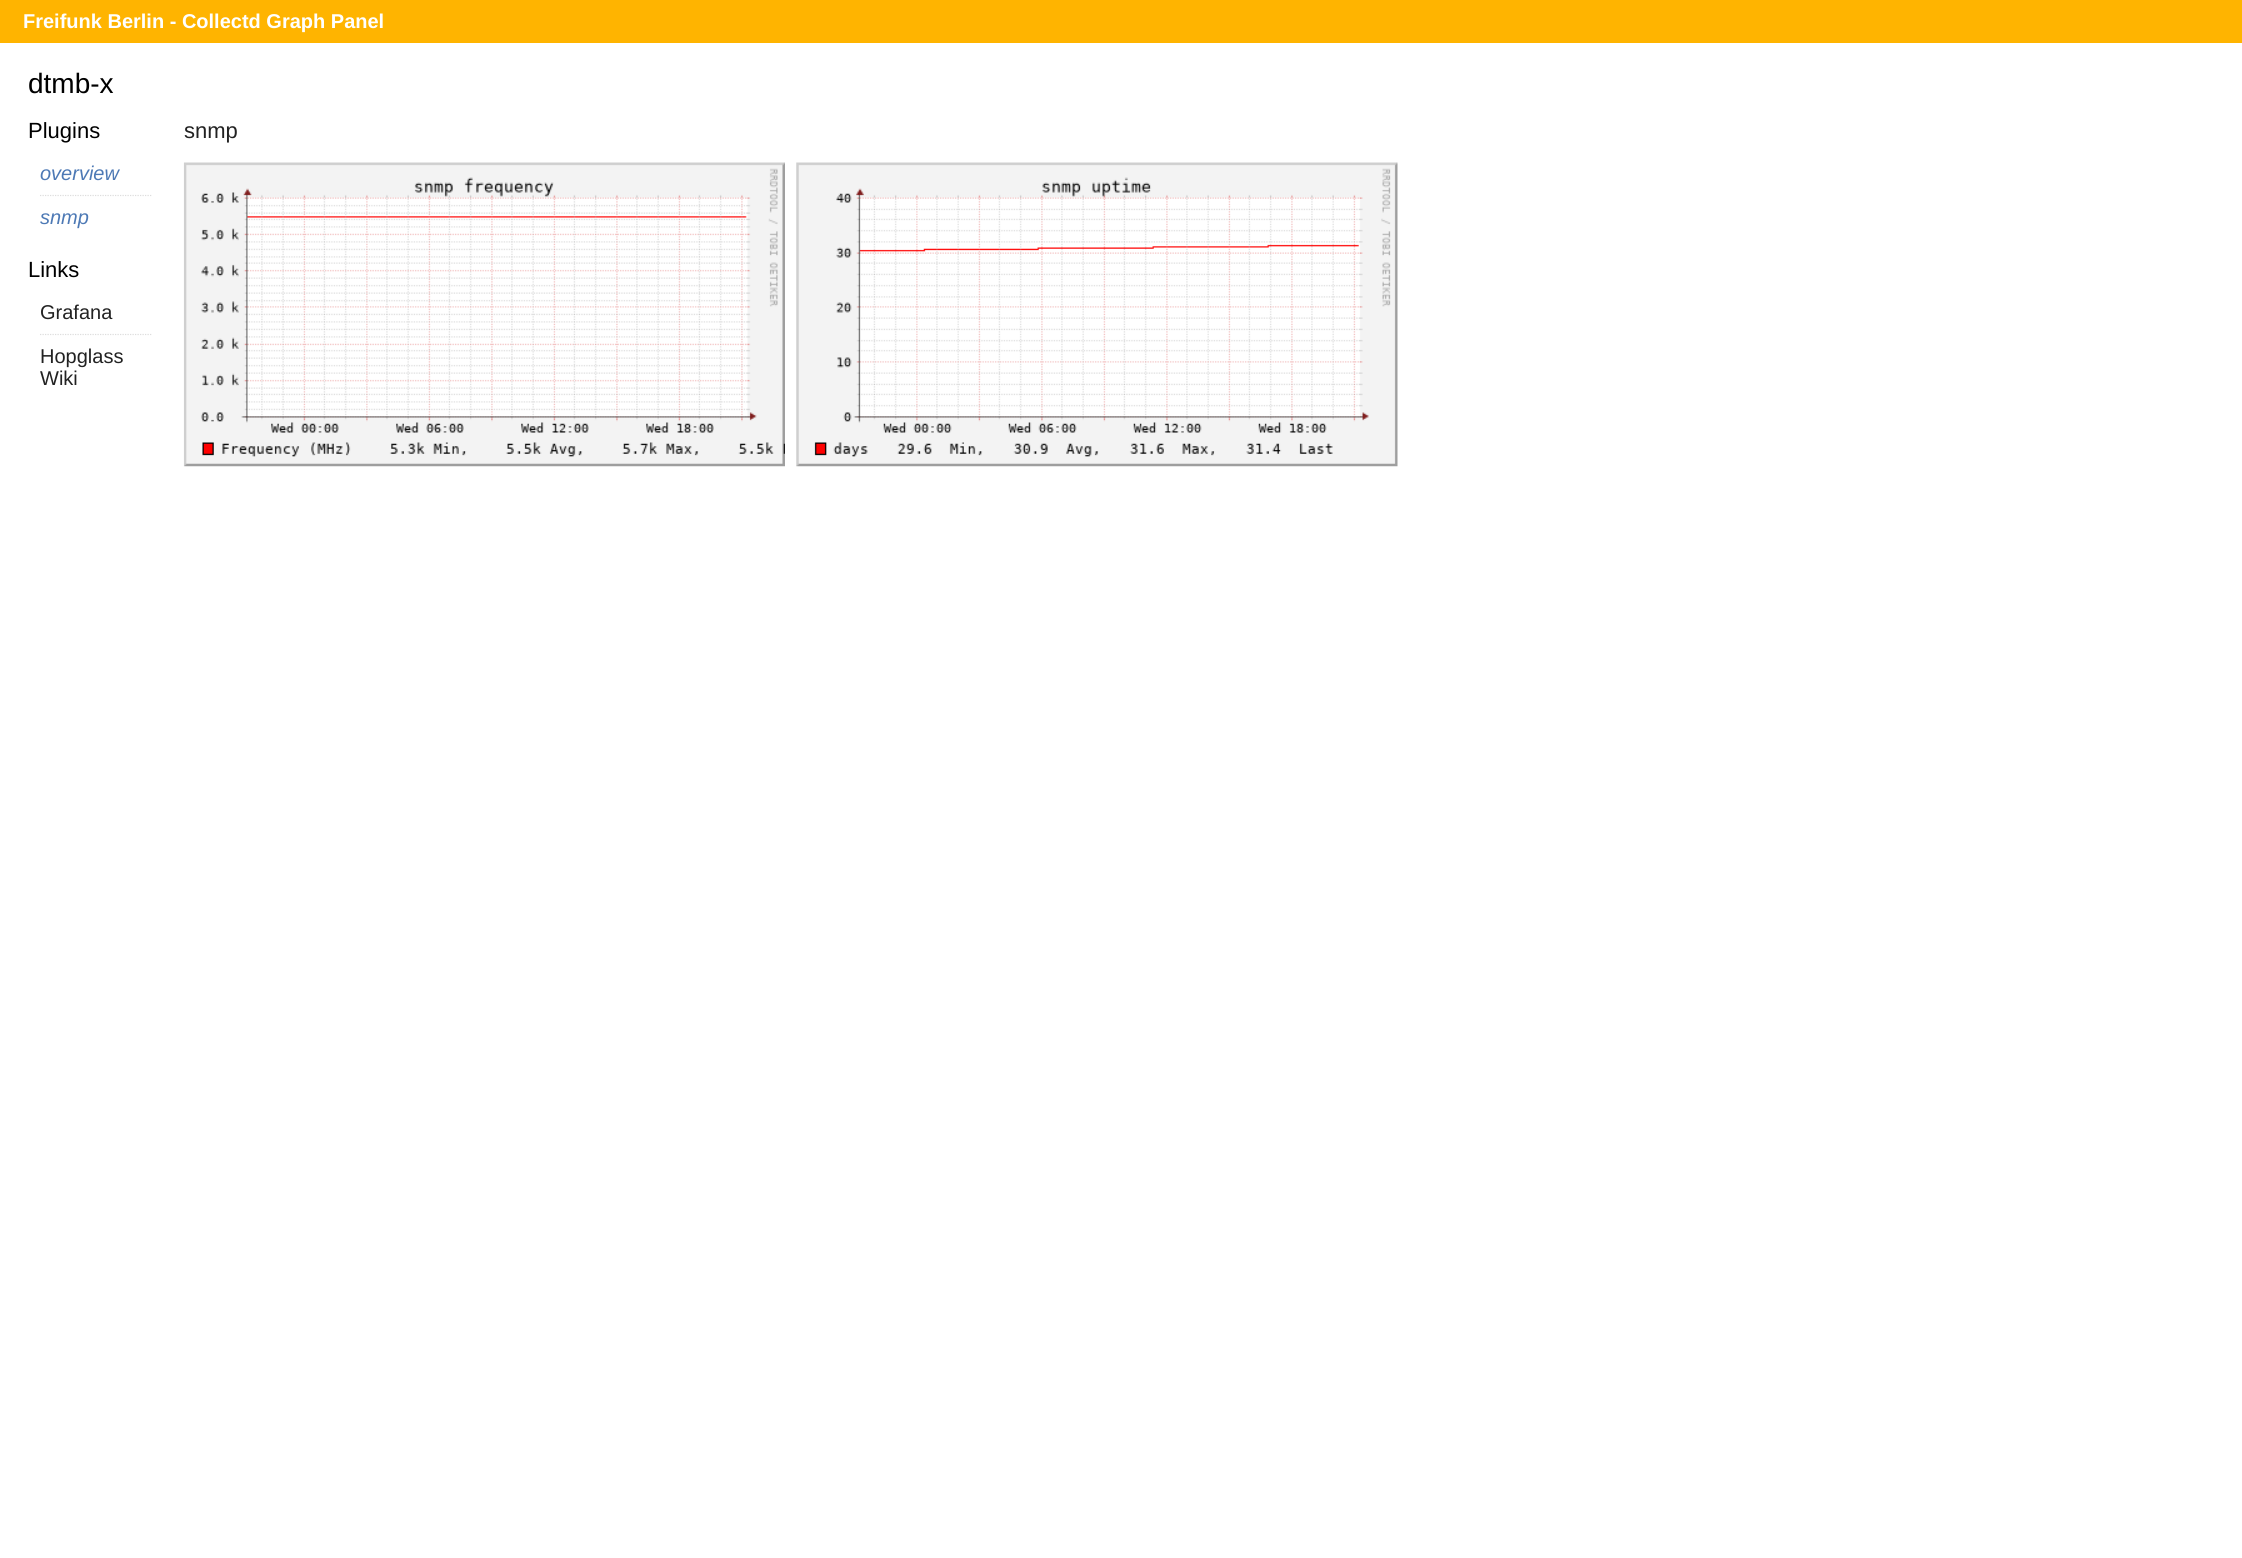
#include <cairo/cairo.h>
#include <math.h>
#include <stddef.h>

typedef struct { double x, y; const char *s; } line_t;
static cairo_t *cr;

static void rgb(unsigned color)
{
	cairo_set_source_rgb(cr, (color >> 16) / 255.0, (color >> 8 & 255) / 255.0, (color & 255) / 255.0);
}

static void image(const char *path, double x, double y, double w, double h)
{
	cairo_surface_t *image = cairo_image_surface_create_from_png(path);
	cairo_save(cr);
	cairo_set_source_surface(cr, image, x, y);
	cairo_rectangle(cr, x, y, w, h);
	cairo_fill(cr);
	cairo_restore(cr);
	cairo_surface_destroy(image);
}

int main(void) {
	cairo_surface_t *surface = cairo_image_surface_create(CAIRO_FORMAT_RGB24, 2242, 1558);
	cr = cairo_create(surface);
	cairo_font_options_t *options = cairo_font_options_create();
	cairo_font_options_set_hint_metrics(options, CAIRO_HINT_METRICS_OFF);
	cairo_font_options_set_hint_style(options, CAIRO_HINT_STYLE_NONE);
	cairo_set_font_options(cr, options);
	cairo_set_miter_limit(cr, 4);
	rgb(0xffffff);
	cairo_paint(cr);
	rgb(0xffb400);
	cairo_rectangle(cr, 0, 0, 2242, 43);
	cairo_fill(cr);
	cairo_new_path(cr);
	cairo_move_to(cr, 40, 195.5);
	cairo_line_to(cr, 152.5, 195.5);
	rgb(0xdddddd);
	cairo_set_line_width(cr, 1.2);
	cairo_set_dash(cr, (double[]){1.25, 1.25}, 2, 0);
	cairo_stroke(cr);
	cairo_new_path(cr);
	cairo_move_to(cr, 40, 334.5);
	cairo_line_to(cr, 152.5, 334.5);
	cairo_stroke(cr);
	image("img/1.png", 183, 162, 602, 305);
	image("img/2.png", 796, 162, 602, 305);
	cairo_select_font_face(cr, "Liberation Sans", CAIRO_FONT_SLANT_NORMAL, CAIRO_FONT_WEIGHT_BOLD);
	cairo_set_font_size(cr, 20);
	rgb(0xffffff);
	cairo_move_to(cr, 23, 28);
	cairo_show_text(cr, "Freifunk Berlin - Collectd Graph Panel");
	cairo_select_font_face(cr, "Liberation Sans", CAIRO_FONT_SLANT_NORMAL, CAIRO_FONT_WEIGHT_NORMAL);
	cairo_set_font_size(cr, 28);
	rgb(0x000000);
	cairo_move_to(cr, 28, 93);
	cairo_show_text(cr, "dtmb-x");
	cairo_set_font_size(cr, 22);
	cairo_move_to(cr, 28, 138);
	cairo_show_text(cr, "Plugins");
	cairo_select_font_face(cr, "Liberation Sans", CAIRO_FONT_SLANT_ITALIC, CAIRO_FONT_WEIGHT_NORMAL);
	cairo_set_font_size(cr, 20);
	rgb(0x4d79b5);
	cairo_move_to(cr, 40, 180);
	cairo_show_text(cr, "overview");
	cairo_move_to(cr, 40, 224);
	cairo_show_text(cr, "snmp");
	cairo_select_font_face(cr, "Liberation Sans", CAIRO_FONT_SLANT_NORMAL, CAIRO_FONT_WEIGHT_NORMAL);
	cairo_set_font_size(cr, 22);
	rgb(0x000000);
	cairo_move_to(cr, 28, 277);
	cairo_show_text(cr, "Links");
	cairo_set_font_size(cr, 20);
	rgb(0x222222);
	{
		static const line_t items[] = {
			{40, 319, "Grafana"},
			{40, 363, "Hopglass"},
			{40, 385, "Wiki"},
		};
		for (size_t i = 0; i < sizeof items / sizeof *items; i++) {
			cairo_move_to(cr, items[i].x, items[i].y);
			cairo_show_text(cr, items[i].s);
		}
	}
	cairo_set_font_size(cr, 22);
	cairo_move_to(cr, 184, 138);
	cairo_show_text(cr, "snmp");
	cairo_surface_write_to_png(surface, "page.png");
	cairo_font_options_destroy(options);
	cairo_destroy(cr);
	cairo_surface_destroy(surface);
	return 0;
}
